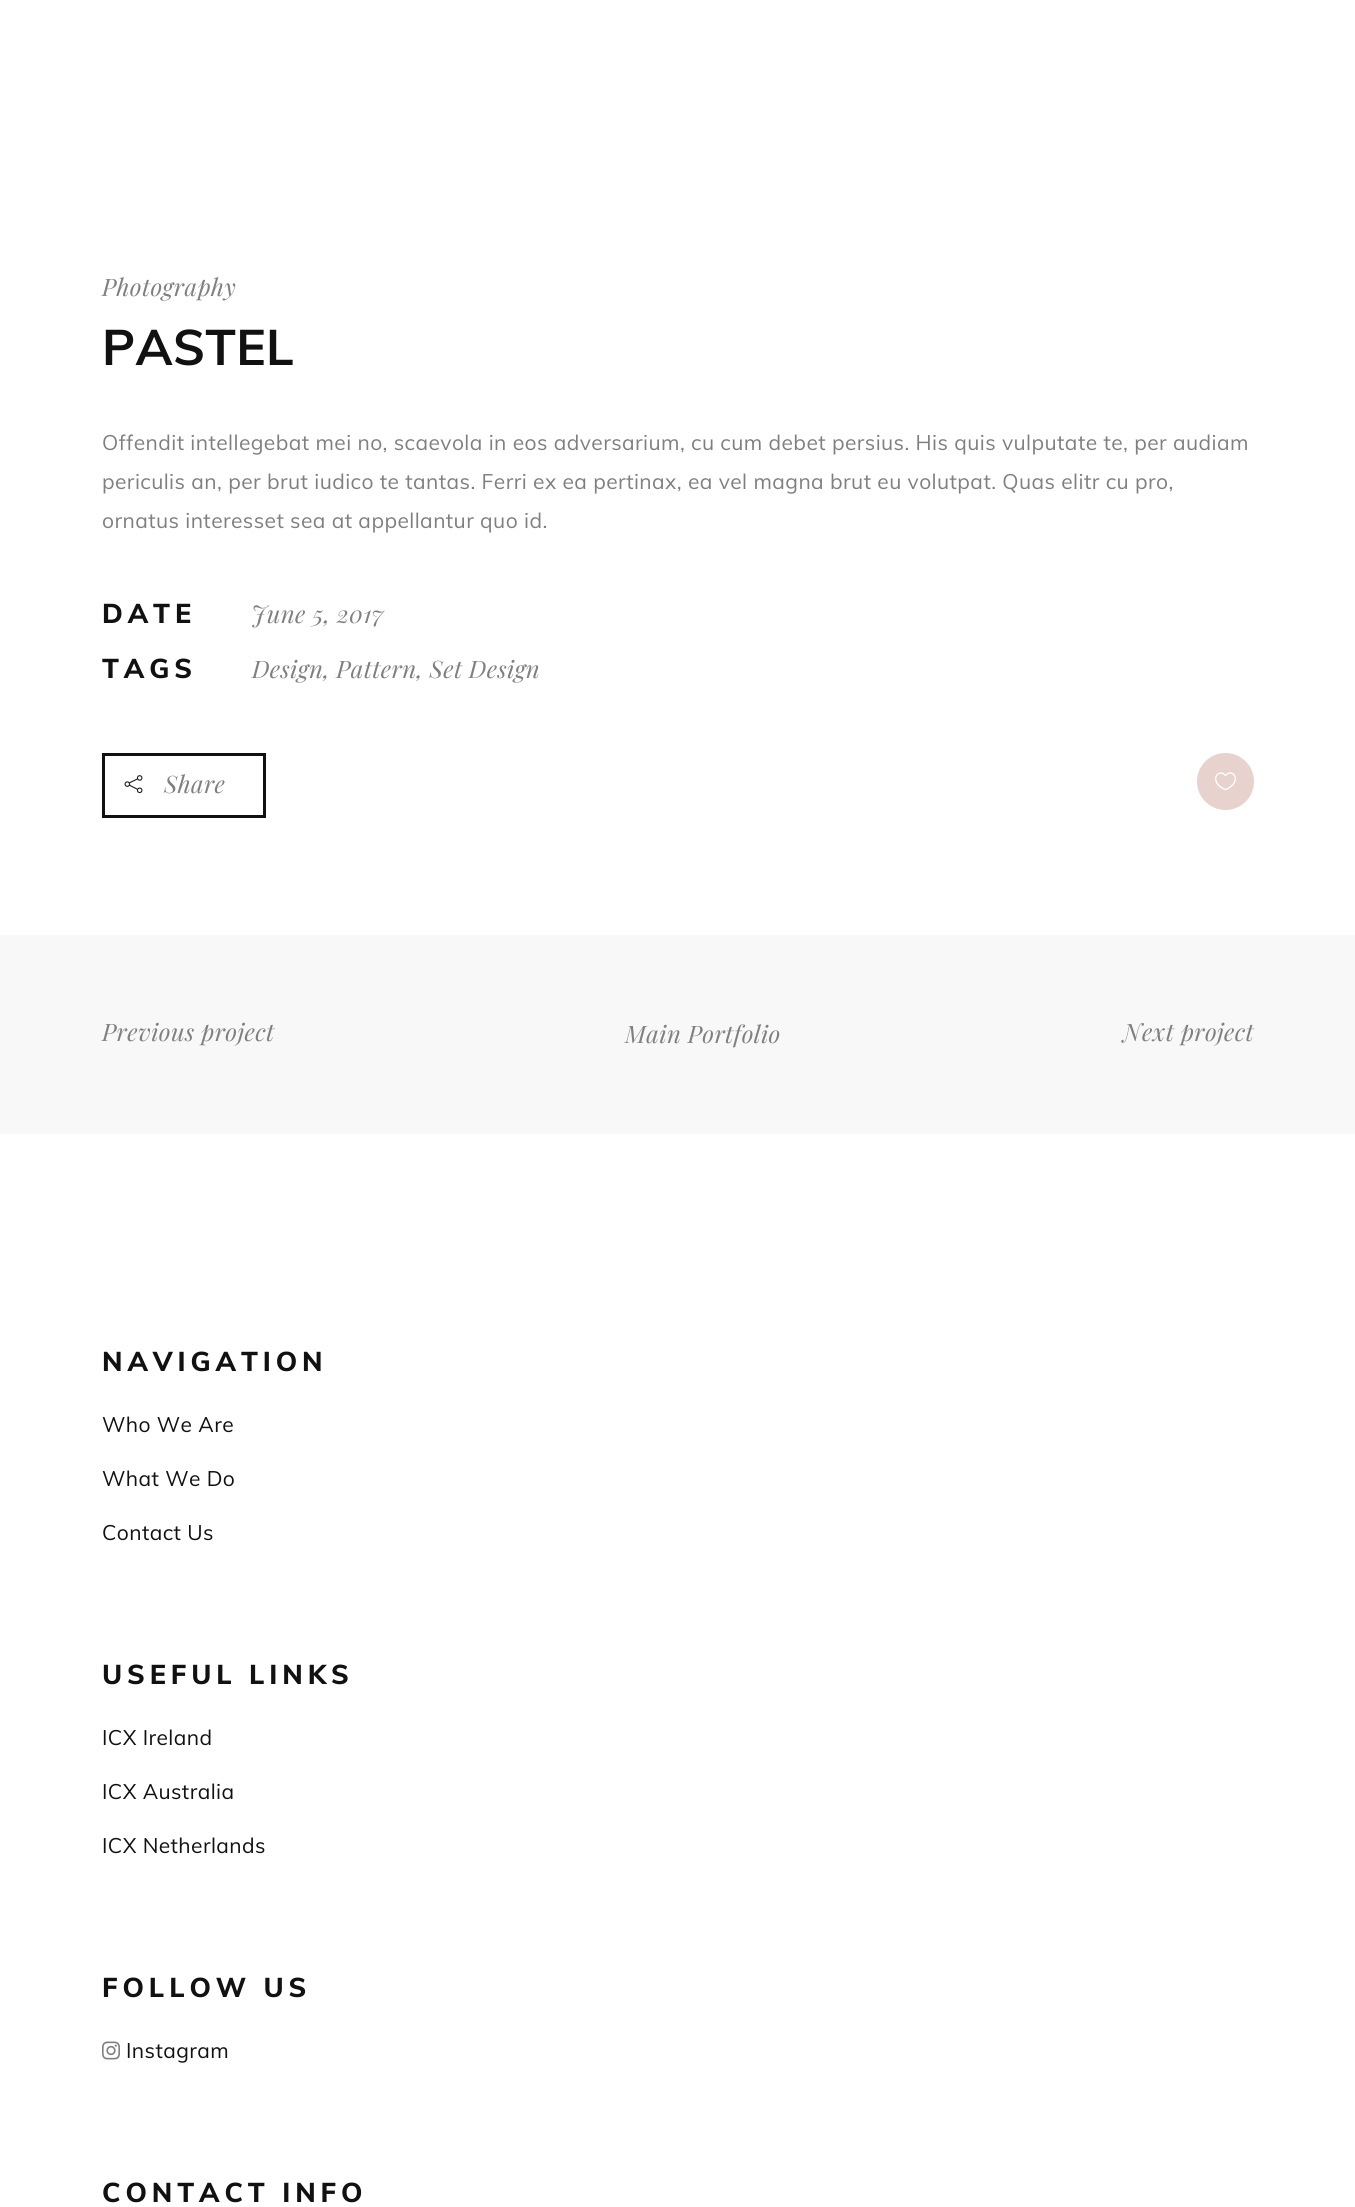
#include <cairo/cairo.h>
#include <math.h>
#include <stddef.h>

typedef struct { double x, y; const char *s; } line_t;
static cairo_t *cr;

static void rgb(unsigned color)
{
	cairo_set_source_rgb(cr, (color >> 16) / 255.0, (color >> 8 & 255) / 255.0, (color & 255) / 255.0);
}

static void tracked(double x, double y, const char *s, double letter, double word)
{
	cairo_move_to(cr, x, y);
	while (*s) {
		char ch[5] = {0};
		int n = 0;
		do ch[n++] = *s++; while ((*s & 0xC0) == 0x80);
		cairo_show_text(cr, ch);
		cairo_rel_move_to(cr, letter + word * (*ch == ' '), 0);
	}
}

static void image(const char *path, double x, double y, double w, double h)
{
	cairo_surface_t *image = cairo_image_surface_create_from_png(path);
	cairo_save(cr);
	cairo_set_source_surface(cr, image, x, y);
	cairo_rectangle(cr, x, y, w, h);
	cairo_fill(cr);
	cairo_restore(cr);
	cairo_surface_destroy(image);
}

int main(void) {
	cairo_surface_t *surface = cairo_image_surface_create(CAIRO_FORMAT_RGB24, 1355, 2207);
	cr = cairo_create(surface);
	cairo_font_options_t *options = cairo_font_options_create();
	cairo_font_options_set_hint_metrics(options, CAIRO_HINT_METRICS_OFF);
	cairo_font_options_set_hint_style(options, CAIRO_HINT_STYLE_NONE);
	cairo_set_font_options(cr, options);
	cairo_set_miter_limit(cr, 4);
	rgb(0xffffff);
	cairo_paint(cr);
	cairo_rectangle(cr, 103.5, 754.5, 161, 62);
	rgb(0x111111);
	cairo_set_line_width(cr, 3);
	cairo_stroke(cr);
	image("img/1.png", 124, 775, 19, 19);
	rgb(0xe8d2ce);
	cairo_arc(cr, 1225.5, 781.5, 28.5, 0, 2 * M_PI);
	cairo_fill(cr);
	image("img/2.png", 1215, 772, 21, 19);
	rgb(0xf8f8f8);
	cairo_rectangle(cr, 0, 935, 1355, 199);
	cairo_fill(cr);
	image("img/3.png", 102, 2041, 18, 19);
	cairo_select_font_face(cr, "Playfair Display", CAIRO_FONT_SLANT_ITALIC, CAIRO_FONT_WEIGHT_NORMAL);
	cairo_set_font_size(cr, 24);
	rgb(0x7f7f7f);
	tracked(102, 296, "Photography", 0.42, 0);
	cairo_select_font_face(cr, "Muli", CAIRO_FONT_SLANT_NORMAL, CAIRO_FONT_WEIGHT_BOLD);
	cairo_set_font_size(cr, 49.5);
	rgb(0x111111);
	tracked(102, 365, "PASTEL", 0.42, 0);
	cairo_select_font_face(cr, "Muli", CAIRO_FONT_SLANT_NORMAL, CAIRO_FONT_WEIGHT_NORMAL);
	cairo_set_font_size(cr, 21);
	rgb(0x7f7f7f);
	{
		static const line_t items[] = {
			{102, 450, "Offendit intellegebat mei no, scaevola in eos adversarium, cu cum debet persius. His quis vulputate te, per audiam"},
			{102, 489, "periculis an, per brut iudico te tantas. Ferri ex ea pertinax, ea vel magna brut eu volutpat. Quas elitr cu pro,"},
			{102, 528, "ornatus interesset sea at appellantur quo id."},
		};
		for (size_t i = 0; i < sizeof items / sizeof *items; i++) {
			tracked(items[i].x, items[i].y, items[i].s, 0.42, 0);
		}
	}
	cairo_select_font_face(cr, "Muli ExtraBold", CAIRO_FONT_SLANT_NORMAL, CAIRO_FONT_WEIGHT_NORMAL);
	cairo_set_font_size(cr, 27);
	rgb(0x111111);
	tracked(102, 623, "DATE", 4.9, 0);
	cairo_select_font_face(cr, "Playfair Display", CAIRO_FONT_SLANT_ITALIC, CAIRO_FONT_WEIGHT_NORMAL);
	cairo_set_font_size(cr, 24);
	rgb(0x7f7f7f);
	tracked(251, 623, "June 5, 2017", 0.42, 0);
	cairo_select_font_face(cr, "Muli ExtraBold", CAIRO_FONT_SLANT_NORMAL, CAIRO_FONT_WEIGHT_NORMAL);
	cairo_set_font_size(cr, 27);
	rgb(0x111111);
	tracked(102, 678, "TAGS", 4.9, 0);
	cairo_select_font_face(cr, "Playfair Display", CAIRO_FONT_SLANT_ITALIC, CAIRO_FONT_WEIGHT_NORMAL);
	cairo_set_font_size(cr, 24);
	rgb(0x7f7f7f);
	{
		static const line_t items[] = {
			{252, 678, "Design, Pattern, Set Design"},
			{164, 793, "Share"},
			{102, 1041, "Previous project"},
			{625, 1043, "Main Portfolio"},
			{1123, 1041, "Next project"},
		};
		for (size_t i = 0; i < sizeof items / sizeof *items; i++) {
			tracked(items[i].x, items[i].y, items[i].s, 0.42, 0);
		}
	}
	cairo_select_font_face(cr, "Muli ExtraBold", CAIRO_FONT_SLANT_NORMAL, CAIRO_FONT_WEIGHT_NORMAL);
	cairo_set_font_size(cr, 27);
	rgb(0x111111);
	tracked(102, 1371, "NAVIGATION", 4.9, 0);
	cairo_select_font_face(cr, "Muli", CAIRO_FONT_SLANT_NORMAL, CAIRO_FONT_WEIGHT_NORMAL);
	cairo_set_font_size(cr, 21);
	{
		static const line_t items[] = {
			{102, 1432, "Who We Are"},
			{102, 1486, "What We Do"},
			{102, 1540, "Contact Us"},
		};
		for (size_t i = 0; i < sizeof items / sizeof *items; i++) {
			tracked(items[i].x, items[i].y, items[i].s, 0.42, 0);
		}
	}
	cairo_select_font_face(cr, "Muli ExtraBold", CAIRO_FONT_SLANT_NORMAL, CAIRO_FONT_WEIGHT_NORMAL);
	cairo_set_font_size(cr, 27);
	tracked(102, 1684, "USEFUL LINKS", 4.9, 0);
	cairo_select_font_face(cr, "Muli", CAIRO_FONT_SLANT_NORMAL, CAIRO_FONT_WEIGHT_NORMAL);
	cairo_set_font_size(cr, 21);
	{
		static const line_t items[] = {
			{102, 1745, "ICX Ireland"},
			{102, 1799, "ICX Australia"},
			{102, 1853, "ICX Netherlands"},
		};
		for (size_t i = 0; i < sizeof items / sizeof *items; i++) {
			tracked(items[i].x, items[i].y, items[i].s, 0.42, 0);
		}
	}
	cairo_select_font_face(cr, "Muli ExtraBold", CAIRO_FONT_SLANT_NORMAL, CAIRO_FONT_WEIGHT_NORMAL);
	cairo_set_font_size(cr, 27);
	tracked(102, 1997, "FOLLOW US", 4.9, 0);
	cairo_select_font_face(cr, "Muli", CAIRO_FONT_SLANT_NORMAL, CAIRO_FONT_WEIGHT_NORMAL);
	cairo_set_font_size(cr, 21);
	tracked(126, 2058, "Instagram", 0.42, 0);
	cairo_select_font_face(cr, "Muli ExtraBold", CAIRO_FONT_SLANT_NORMAL, CAIRO_FONT_WEIGHT_NORMAL);
	cairo_set_font_size(cr, 27);
	tracked(102, 2202, "CONTACT INFO", 4.9, 0);
	cairo_surface_write_to_png(surface, "page.png");
	cairo_font_options_destroy(options);
	cairo_destroy(cr);
	cairo_surface_destroy(surface);
	return 0;
}
